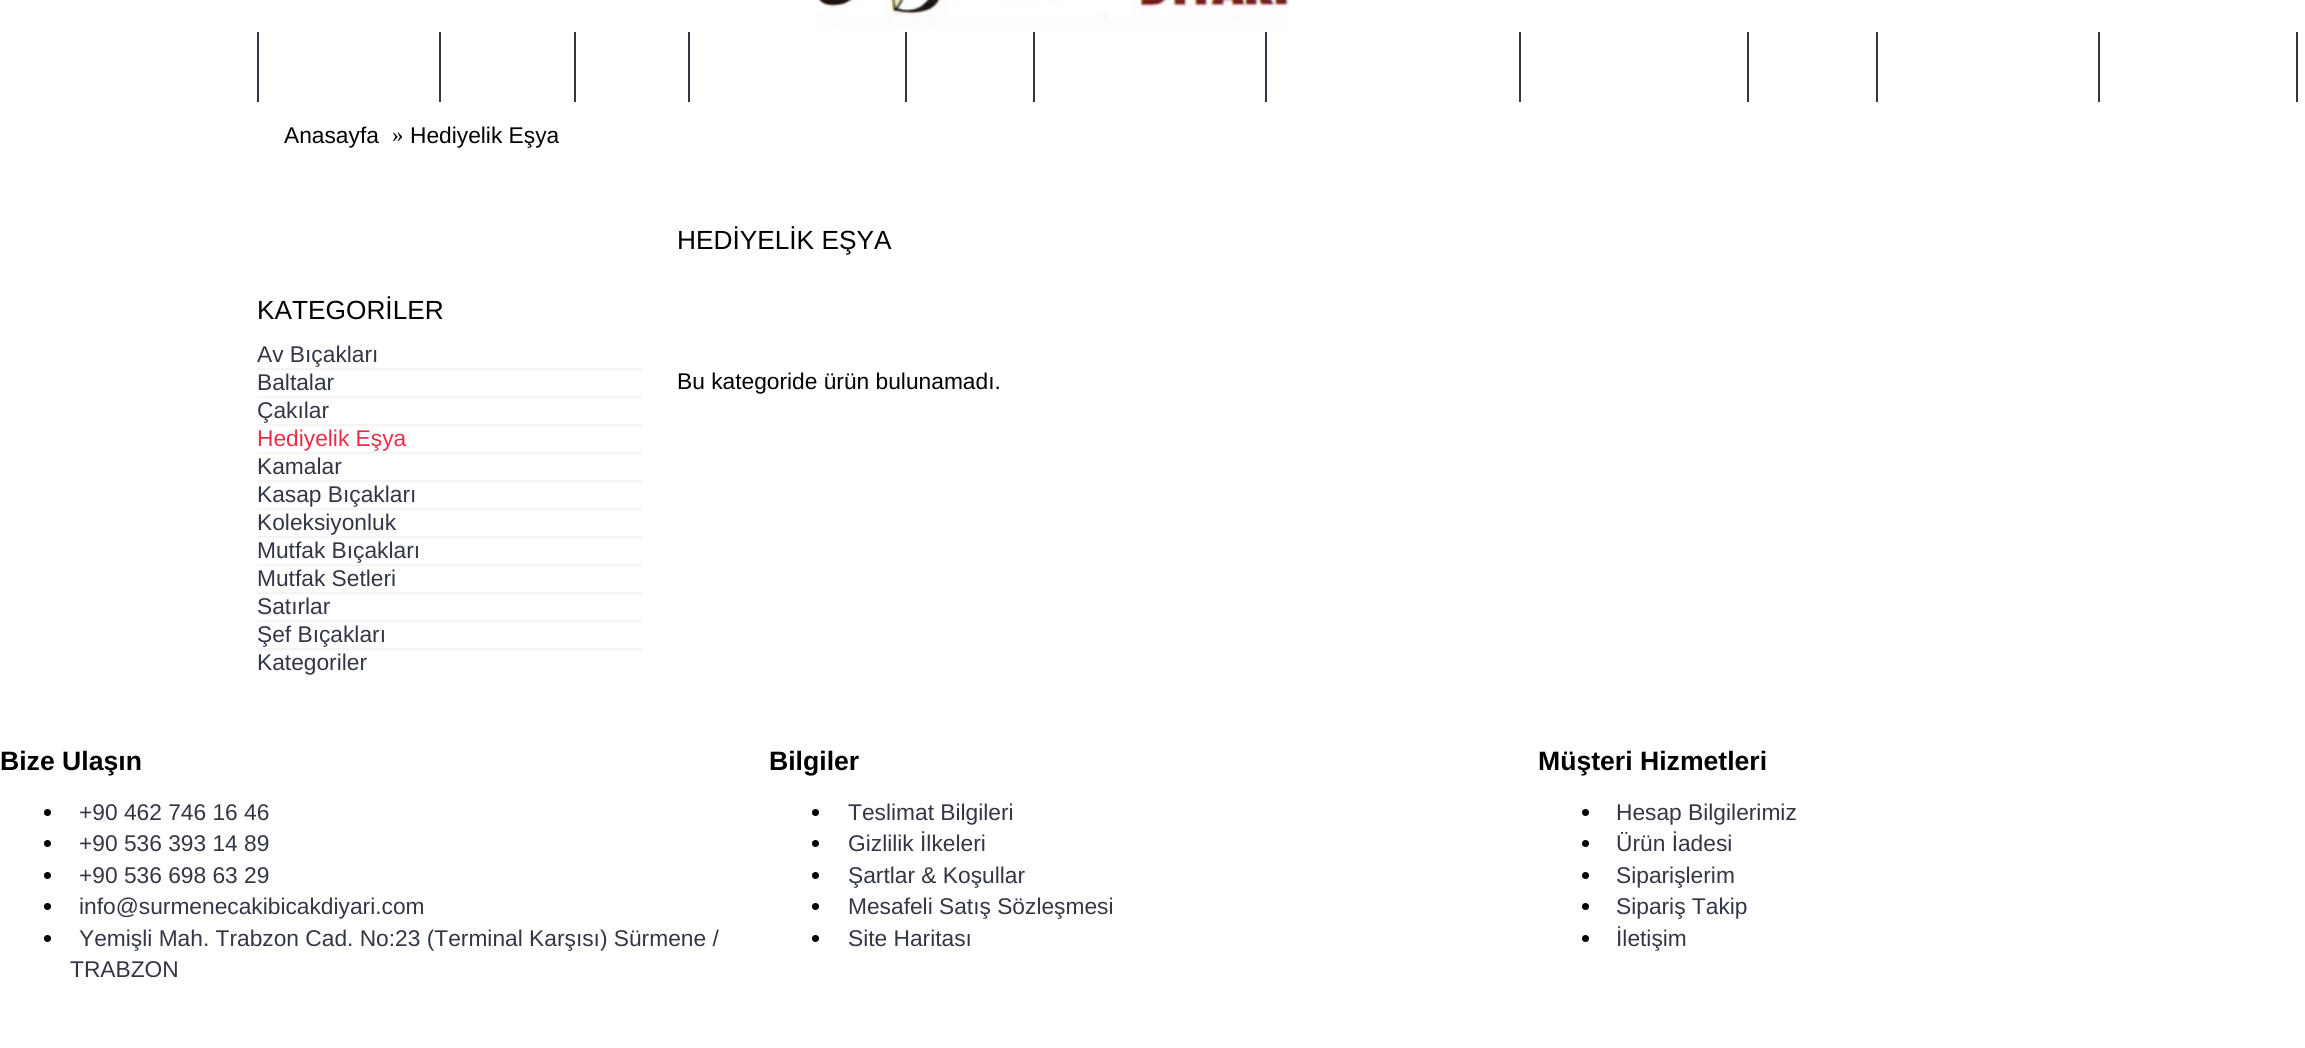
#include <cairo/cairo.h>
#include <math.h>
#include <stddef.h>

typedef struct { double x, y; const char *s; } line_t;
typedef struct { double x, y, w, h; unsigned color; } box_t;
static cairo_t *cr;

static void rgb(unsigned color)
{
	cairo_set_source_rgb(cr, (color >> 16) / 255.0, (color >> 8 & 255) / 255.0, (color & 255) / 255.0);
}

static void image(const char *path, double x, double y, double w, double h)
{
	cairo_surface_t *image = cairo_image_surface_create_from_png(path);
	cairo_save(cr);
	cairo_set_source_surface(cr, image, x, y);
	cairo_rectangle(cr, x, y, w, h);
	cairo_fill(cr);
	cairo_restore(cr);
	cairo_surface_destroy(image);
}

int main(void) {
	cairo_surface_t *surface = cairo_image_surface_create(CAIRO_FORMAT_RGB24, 2305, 1048);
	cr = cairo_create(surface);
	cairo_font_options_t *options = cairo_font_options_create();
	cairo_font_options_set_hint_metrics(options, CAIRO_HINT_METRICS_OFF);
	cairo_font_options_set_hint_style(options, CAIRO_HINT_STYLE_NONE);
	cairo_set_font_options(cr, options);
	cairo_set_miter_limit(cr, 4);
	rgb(0xffffff);
	cairo_paint(cr);
	image("img/1.png", 815, 0, 475, 30);
	{
		static const box_t items[] = {
			{257, 32, 2, 70, 0x333745},
			{439, 32, 2, 70, 0x333745},
			{574, 32, 2, 70, 0x333745},
			{688, 32, 2, 70, 0x333745},
			{905, 32, 2, 70, 0x333745},
			{1033, 32, 2, 70, 0x333745},
			{1265, 32, 2, 70, 0x333745},
			{1519, 32, 2, 70, 0x333745},
			{1747, 32, 2, 70, 0x333745},
			{1876, 32, 2, 70, 0x333745},
			{2098, 32, 2, 70, 0x333745},
			{2296, 32, 2, 70, 0x333745},
			{257, 368, 385, 2, 0xf4f4f4},
			{257, 396, 385, 2, 0xf4f4f4},
			{257, 424, 385, 2, 0xf4f4f4},
			{257, 452, 385, 2, 0xf4f4f4},
			{257, 480, 385, 2, 0xf4f4f4},
			{257, 508, 385, 2, 0xf4f4f4},
			{257, 536, 385, 2, 0xf4f4f4},
			{257, 564, 385, 2, 0xf4f4f4},
			{257, 592, 385, 2, 0xf4f4f4},
			{257, 620, 385, 2, 0xf4f4f4},
			{257, 648, 385, 2, 0xf4f4f4},
		};
		for (size_t i = 0; i < sizeof items / sizeof *items; i++) {
			rgb(items[i].color);
			cairo_rectangle(cr, items[i].x, items[i].y, items[i].w, items[i].h);
			cairo_fill(cr);
		}
	}
	rgb(0x000000);
	cairo_arc(cr, 47.5, 812.5, 3.5, 0, 2 * M_PI);
	cairo_fill(cr);
	cairo_arc(cr, 47.5, 843.5, 3.5, 0, 2 * M_PI);
	cairo_fill(cr);
	cairo_arc(cr, 47.5, 875.5, 3.5, 0, 2 * M_PI);
	cairo_fill(cr);
	cairo_arc(cr, 47.5, 906.5, 3.5, 0, 2 * M_PI);
	cairo_fill(cr);
	cairo_arc(cr, 47.5, 938.5, 3.5, 0, 2 * M_PI);
	cairo_fill(cr);
	cairo_arc(cr, 815.5, 812.5, 3.5, 0, 2 * M_PI);
	cairo_fill(cr);
	cairo_arc(cr, 815.5, 843.5, 3.5, 0, 2 * M_PI);
	cairo_fill(cr);
	cairo_arc(cr, 815.5, 875.5, 3.5, 0, 2 * M_PI);
	cairo_fill(cr);
	cairo_arc(cr, 815.5, 906.5, 3.5, 0, 2 * M_PI);
	cairo_fill(cr);
	cairo_arc(cr, 815.5, 938.5, 3.5, 0, 2 * M_PI);
	cairo_fill(cr);
	cairo_arc(cr, 1585.5, 812.5, 3.5, 0, 2 * M_PI);
	cairo_fill(cr);
	cairo_arc(cr, 1585.5, 843.5, 3.5, 0, 2 * M_PI);
	cairo_fill(cr);
	cairo_arc(cr, 1585.5, 875.5, 3.5, 0, 2 * M_PI);
	cairo_fill(cr);
	cairo_arc(cr, 1585.5, 906.5, 3.5, 0, 2 * M_PI);
	cairo_fill(cr);
	cairo_arc(cr, 1585.5, 938.5, 3.5, 0, 2 * M_PI);
	cairo_fill(cr);
	cairo_select_font_face(cr, "Liberation Sans", CAIRO_FONT_SLANT_NORMAL, CAIRO_FONT_WEIGHT_NORMAL);
	cairo_set_font_size(cr, 22.75);
	cairo_move_to(cr, 284, 143);
	cairo_show_text(cr, "Anasayfa");
	cairo_select_font_face(cr, "Liberation Serif", CAIRO_FONT_SLANT_NORMAL, CAIRO_FONT_WEIGHT_NORMAL);
	cairo_move_to(cr, 392, 142);
	cairo_show_text(cr, "»");
	cairo_select_font_face(cr, "Liberation Sans", CAIRO_FONT_SLANT_NORMAL, CAIRO_FONT_WEIGHT_NORMAL);
	cairo_move_to(cr, 410, 143);
	cairo_show_text(cr, "Hediyelik Eşya");
	cairo_set_font_size(cr, 26.25);
	cairo_move_to(cr, 257, 319);
	cairo_show_text(cr, "KATEGORİLER");
	cairo_set_font_size(cr, 22.75);
	rgb(0x333745);
	{
		static const line_t items[] = {
			{257, 362, "Av Bıçakları"},
			{257, 390, "Baltalar"},
			{257, 418, "Çakılar"},
		};
		for (size_t i = 0; i < sizeof items / sizeof *items; i++) {
			cairo_move_to(cr, items[i].x, items[i].y);
			cairo_show_text(cr, items[i].s);
		}
	}
	rgb(0xea2e49);
	cairo_move_to(cr, 257, 446);
	cairo_show_text(cr, "Hediyelik Eşya");
	rgb(0x333745);
	{
		static const line_t items[] = {
			{257, 474, "Kamalar"},
			{257, 502, "Kasap Bıçakları"},
			{257, 530, "Koleksiyonluk"},
			{257, 558, "Mutfak Bıçakları"},
			{257, 586, "Mutfak Setleri"},
			{257, 614, "Satırlar"},
			{257, 642, "Şef Bıçakları"},
			{257, 670, "Kategoriler"},
		};
		for (size_t i = 0; i < sizeof items / sizeof *items; i++) {
			cairo_move_to(cr, items[i].x, items[i].y);
			cairo_show_text(cr, items[i].s);
		}
	}
	cairo_set_font_size(cr, 26.25);
	rgb(0x000000);
	cairo_move_to(cr, 677, 249);
	cairo_show_text(cr, "HEDİYELİK EŞYA");
	cairo_set_font_size(cr, 22.75);
	cairo_move_to(cr, 677, 389);
	cairo_show_text(cr, "Bu kategoride ürün bulunamadı.");
	cairo_select_font_face(cr, "Liberation Sans", CAIRO_FONT_SLANT_NORMAL, CAIRO_FONT_WEIGHT_BOLD);
	cairo_set_font_size(cr, 26.6);
	cairo_move_to(cr, 0, 770);
	cairo_show_text(cr, "Bize Ulaşın");
	cairo_select_font_face(cr, "Liberation Sans", CAIRO_FONT_SLANT_NORMAL, CAIRO_FONT_WEIGHT_NORMAL);
	cairo_set_font_size(cr, 22.75);
	rgb(0x333745);
	{
		static const line_t items[] = {
			{79, 820, "+90 462 746 16 46"},
			{79, 851, "+90 536 393 14 89"},
			{79, 883, "+90 536 698 63 29"},
			{79, 914, "info@surmenecakibicakdiyari.com"},
			{79, 946, "Yemişli Mah. Trabzon Cad. No:23 (Terminal Karşısı) Sürmene /"},
			{70, 977, "TRABZON"},
		};
		for (size_t i = 0; i < sizeof items / sizeof *items; i++) {
			cairo_move_to(cr, items[i].x, items[i].y);
			cairo_show_text(cr, items[i].s);
		}
	}
	cairo_select_font_face(cr, "Liberation Sans", CAIRO_FONT_SLANT_NORMAL, CAIRO_FONT_WEIGHT_BOLD);
	cairo_set_font_size(cr, 26.6);
	rgb(0x000000);
	cairo_move_to(cr, 769, 770);
	cairo_show_text(cr, "Bilgiler");
	cairo_select_font_face(cr, "Liberation Sans", CAIRO_FONT_SLANT_NORMAL, CAIRO_FONT_WEIGHT_NORMAL);
	cairo_set_font_size(cr, 22.75);
	rgb(0x333745);
	{
		static const line_t items[] = {
			{848, 820, "Teslimat Bilgileri"},
			{848, 851, "Gizlilik İlkeleri"},
			{848, 883, "Şartlar & Koşullar"},
			{848, 914, "Mesafeli Satış Sözleşmesi"},
			{848, 946, "Site Haritası"},
		};
		for (size_t i = 0; i < sizeof items / sizeof *items; i++) {
			cairo_move_to(cr, items[i].x, items[i].y);
			cairo_show_text(cr, items[i].s);
		}
	}
	cairo_select_font_face(cr, "Liberation Sans", CAIRO_FONT_SLANT_NORMAL, CAIRO_FONT_WEIGHT_BOLD);
	cairo_set_font_size(cr, 26.6);
	rgb(0x000000);
	cairo_move_to(cr, 1538, 770);
	cairo_show_text(cr, "Müşteri Hizmetleri");
	cairo_select_font_face(cr, "Liberation Sans", CAIRO_FONT_SLANT_NORMAL, CAIRO_FONT_WEIGHT_NORMAL);
	cairo_set_font_size(cr, 22.75);
	rgb(0x333745);
	{
		static const line_t items[] = {
			{1616, 820, "Hesap Bilgilerimiz"},
			{1616, 851, "Ürün İadesi"},
			{1616, 883, "Siparişlerim"},
			{1616, 914, "Sipariş Takip"},
			{1616, 946, "İletişim"},
		};
		for (size_t i = 0; i < sizeof items / sizeof *items; i++) {
			cairo_move_to(cr, items[i].x, items[i].y);
			cairo_show_text(cr, items[i].s);
		}
	}
	cairo_surface_write_to_png(surface, "page.png");
	cairo_font_options_destroy(options);
	cairo_destroy(cr);
	cairo_surface_destroy(surface);
	return 0;
}
